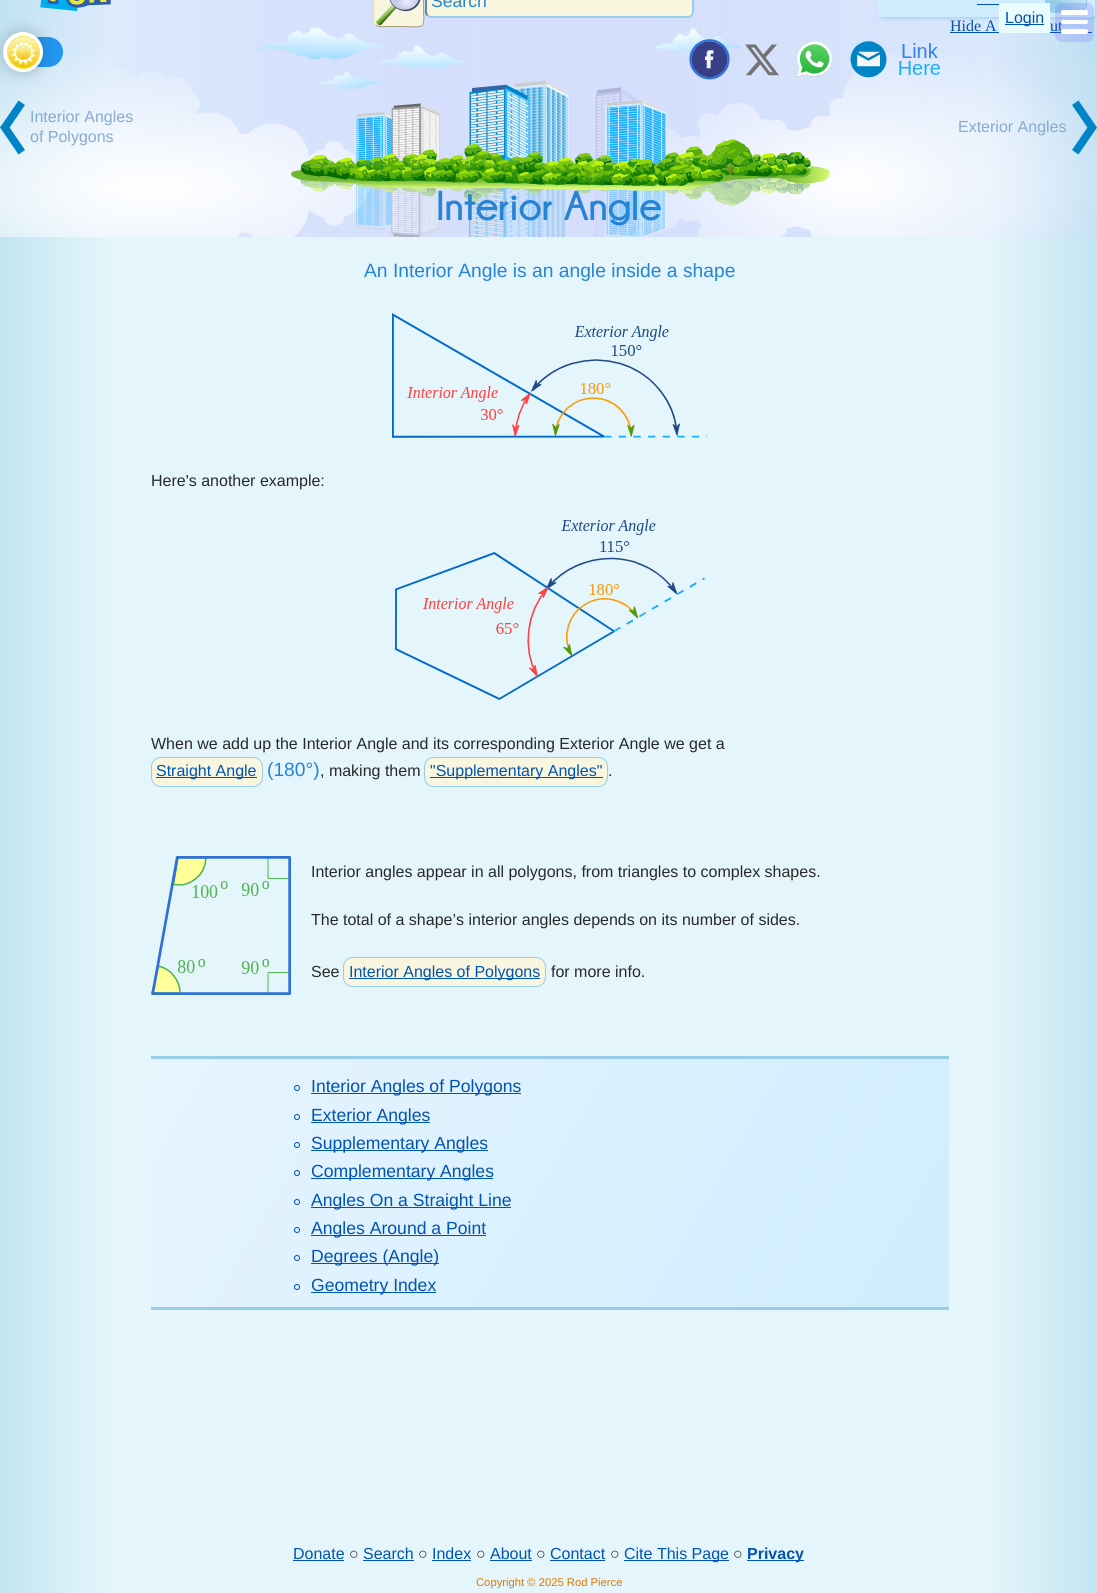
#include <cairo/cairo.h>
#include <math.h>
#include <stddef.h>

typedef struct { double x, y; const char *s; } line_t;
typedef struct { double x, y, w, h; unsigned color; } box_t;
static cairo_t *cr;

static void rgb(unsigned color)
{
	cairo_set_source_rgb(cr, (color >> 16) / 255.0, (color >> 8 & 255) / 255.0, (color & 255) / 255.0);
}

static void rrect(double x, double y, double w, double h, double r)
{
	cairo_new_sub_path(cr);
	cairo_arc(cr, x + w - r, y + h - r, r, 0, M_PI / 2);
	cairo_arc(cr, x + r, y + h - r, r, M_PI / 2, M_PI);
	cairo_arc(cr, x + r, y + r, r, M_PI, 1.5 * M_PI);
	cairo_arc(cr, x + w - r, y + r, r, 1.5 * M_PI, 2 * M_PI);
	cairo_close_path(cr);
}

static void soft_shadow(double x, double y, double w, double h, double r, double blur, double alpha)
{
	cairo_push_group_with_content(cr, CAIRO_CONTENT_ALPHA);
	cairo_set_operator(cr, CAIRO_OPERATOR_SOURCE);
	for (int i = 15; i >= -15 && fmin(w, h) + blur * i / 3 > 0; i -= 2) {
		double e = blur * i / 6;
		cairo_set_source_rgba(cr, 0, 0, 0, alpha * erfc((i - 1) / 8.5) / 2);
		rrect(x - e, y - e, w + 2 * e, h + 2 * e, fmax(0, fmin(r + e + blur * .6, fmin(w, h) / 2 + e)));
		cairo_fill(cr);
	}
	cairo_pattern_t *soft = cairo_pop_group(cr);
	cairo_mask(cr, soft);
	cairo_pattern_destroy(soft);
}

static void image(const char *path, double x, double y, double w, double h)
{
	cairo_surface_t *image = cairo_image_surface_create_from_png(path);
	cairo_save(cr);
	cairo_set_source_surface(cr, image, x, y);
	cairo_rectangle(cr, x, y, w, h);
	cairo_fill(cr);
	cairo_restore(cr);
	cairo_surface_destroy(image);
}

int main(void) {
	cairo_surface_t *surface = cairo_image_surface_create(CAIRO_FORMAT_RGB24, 1097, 1593);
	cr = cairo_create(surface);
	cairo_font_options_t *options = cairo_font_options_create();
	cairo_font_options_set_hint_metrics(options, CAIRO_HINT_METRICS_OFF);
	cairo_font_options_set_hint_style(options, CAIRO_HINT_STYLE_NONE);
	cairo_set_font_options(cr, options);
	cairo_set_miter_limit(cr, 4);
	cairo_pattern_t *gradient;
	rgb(0xffffff);
	cairo_paint(cr);
	gradient = cairo_pattern_create_linear(0, 765, 1097, 765);
	cairo_pattern_add_color_stop_rgba(gradient, 0, 0.761, 0.898, 0.945, 1);
	cairo_pattern_add_color_stop_rgba(gradient, 0.1, 0.894, 0.961, 0.984, 1);
	cairo_pattern_add_color_stop_rgba(gradient, 0.9, 0.894, 0.961, 0.984, 1);
	cairo_pattern_add_color_stop_rgba(gradient, 1, 0.761, 0.898, 0.945, 1);
	cairo_set_source(cr, gradient);
	cairo_pattern_destroy(gradient);
	cairo_rectangle(cr, 0, 0, 1097, 1593);
	cairo_fill(cr);
	image("img/12.png", 0, 0, 1097, 237);
	rgb(0x2196f3);
	rrect(3, 37, 60, 30, 15);
	cairo_fill(cr);
	rgb(0x202020);
	soft_shadow(3, 32, 40, 40, 20, 7.5, 0.24);
	image("img/1.png", 40, 0, 71, 11);
	rgb(0xf9f6df);
	rrect(374, -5, 50, 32, 5);
	cairo_fill(cr);
	image("img/2.png", 375, 0, 46, 26);
	cairo_new_path(cr);
	cairo_move_to(cr, 422, -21);
	cairo_curve_to(cr, 424.5, -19, 423.5, -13.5, 423.5, -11.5);
	cairo_line_to(cr, 423.5, 2);
	cairo_curve_to(cr, 423.5, 31.5, 428.5, 26.5, 399, 26.5);
	cairo_line_to(cr, 385.5, 26.5);
	cairo_curve_to(cr, 383.5, 26.5, 378, 27.5, 376, 25);
	rgb(0xa59d7f);
	cairo_set_line_width(cr, 1);
	cairo_stroke(cr);
	cairo_new_path(cr);
	cairo_move_to(cr, 376, 25);
	cairo_curve_to(cr, 373.5, 23, 374.5, 17.5, 374.5, 15.5);
	cairo_line_to(cr, 374.5, 2);
	cairo_curve_to(cr, 374.5, -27.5, 369.5, -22.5, 399, -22.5);
	cairo_line_to(cr, 412.5, -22.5);
	cairo_curve_to(cr, 414.5, -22.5, 420, -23.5, 422, -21);
	rgb(0xf7ecbe);
	cairo_stroke(cr);
	rgb(0xf9f6df);
	rrect(425, -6, 269, 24, 6);
	cairo_fill(cr);
	cairo_new_path(cr);
	cairo_move_to(cr, 691.5, -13.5);
	cairo_curve_to(cr, 692.5, -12.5, 693, -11, 693, -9.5);
	cairo_line_to(cr, 693, 11.5);
	cairo_curve_to(cr, 693, 13, 692.5, 14.5, 691.5, 15.5);
	cairo_curve_to(cr, 690.5, 16.5, 689, 17, 687.5, 17);
	cairo_line_to(cr, 431.5, 17);
	cairo_curve_to(cr, 430, 17, 428.5, 16.5, 427.5, 15.5);
	rgb(0x98cceb);
	cairo_set_line_width(cr, 2);
	cairo_stroke(cr);
	cairo_new_path(cr);
	cairo_move_to(cr, 427.5, 15.5);
	cairo_curve_to(cr, 426.5, 14.5, 426, 13, 426, 11.5);
	cairo_line_to(cr, 426, -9.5);
	cairo_curve_to(cr, 426, -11, 426.5, -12.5, 427.5, -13.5);
	cairo_curve_to(cr, 428.5, -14.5, 430, -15, 431.5, -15);
	cairo_line_to(cr, 687.5, -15);
	cairo_curve_to(cr, 689, -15, 690.5, -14.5, 691.5, -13.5);
	rgb(0x65889d);
	cairo_stroke(cr);
	rgb(0xffffff);
	cairo_arc(cr, 23, 52, 20, 0, 2 * M_PI);
	cairo_fill(cr);
	image("img/3.png", 7, 36, 33, 33);
	image("img/4.png", 689, 39, 41, 41);
	image("img/5.png", 745, 44, 34, 32);
	image("img/6.png", 796, 41, 37, 36);
	image("img/7.png", 850, 41, 37, 37);
	image("img/8.png", 899, 43, 41, 32);
	image("img/9.png", 392, 313, 315, 125);
	image("img/10.png", 395, 519, 310, 181);
	rgb(0xf9f6df);
	rrect(151.5, 757.5, 111, 29, 9.5);
	cairo_fill_preserve(cr);
	rgb(0x98cceb);
	cairo_set_line_width(cr, 1);
	cairo_stroke(cr);
	rgb(0x0053b3);
	cairo_rectangle(cr, 156, 777, 101, 1);
	cairo_fill(cr);
	rgb(0xf9f6df);
	rrect(424.5, 757.5, 183, 29, 9.5);
	cairo_fill_preserve(cr);
	rgb(0x98cceb);
	cairo_stroke(cr);
	rgb(0x0053b3);
	cairo_rectangle(cr, 430, 777, 173, 1);
	cairo_fill(cr);
	image("img/11.png", 151, 856, 140, 139);
	rgb(0xf9f6df);
	rrect(343.5, 957.5, 202, 29, 9.5);
	cairo_fill_preserve(cr);
	rgb(0x98cceb);
	cairo_stroke(cr);
	rgb(0x0053b3);
	cairo_rectangle(cr, 349, 978, 191, 1);
	cairo_fill(cr);
	gradient = cairo_pattern_create_linear(197, 979, 903, 1387);
	cairo_pattern_add_color_stop_rgba(gradient, 0, 0.902, 0.957, 0.996, 1);
	cairo_pattern_add_color_stop_rgba(gradient, 1, 0.812, 0.929, 1, 1);
	cairo_set_source(cr, gradient);
	cairo_pattern_destroy(gradient);
	cairo_rectangle(cr, 151, 1059, 798, 248);
	cairo_fill(cr);
	rgb(0x98cceb);
	cairo_rectangle(cr, 151, 1056, 798, 3);
	cairo_fill(cr);
	cairo_rectangle(cr, 151, 1307, 798, 3);
	cairo_fill(cr);
	cairo_arc(cr, 297, 1088, 2.5, 0, 2 * M_PI);
	rgb(0x0053b3);
	cairo_stroke(cr);
	cairo_rectangle(cr, 311, 1093, 210, 1);
	cairo_fill(cr);
	cairo_arc(cr, 297, 1117, 2.5, 0, 2 * M_PI);
	cairo_stroke(cr);
	cairo_rectangle(cr, 311, 1122, 119, 1);
	cairo_fill(cr);
	cairo_arc(cr, 297, 1145, 2.5, 0, 2 * M_PI);
	cairo_stroke(cr);
	cairo_rectangle(cr, 311, 1150, 177, 1);
	cairo_fill(cr);
	cairo_arc(cr, 297, 1173, 2.5, 0, 2 * M_PI);
	cairo_stroke(cr);
	cairo_rectangle(cr, 311, 1178, 182, 1);
	cairo_fill(cr);
	cairo_arc(cr, 297, 1202, 2.5, 0, 2 * M_PI);
	cairo_stroke(cr);
	cairo_rectangle(cr, 311, 1207, 200, 1);
	cairo_fill(cr);
	cairo_arc(cr, 297, 1230, 2.5, 0, 2 * M_PI);
	cairo_stroke(cr);
	cairo_rectangle(cr, 311, 1235, 175, 1);
	cairo_fill(cr);
	cairo_arc(cr, 297, 1258, 2.5, 0, 2 * M_PI);
	cairo_stroke(cr);
	cairo_rectangle(cr, 311, 1263, 128, 1);
	cairo_fill(cr);
	cairo_arc(cr, 297, 1287, 2.5, 0, 2 * M_PI);
	cairo_stroke(cr);
	{
		static const box_t items[] = {
			{311, 1292, 125, 1, 0x0053b3},
			{293, 1560, 51, 1, 0x0053b3},
			{363, 1560, 51, 1, 0x0053b3},
			{432, 1560, 39, 1, 0x0053b3},
			{490, 1560, 42, 1, 0x0053b3},
			{550, 1560, 55, 1, 0x0053b3},
			{624, 1560, 105, 1, 0x0053b3},
			{747, 1560, 57, 1, 0x0053b3},
		};
		for (size_t i = 0; i < sizeof items / sizeof *items; i++) {
			rgb(items[i].color);
			cairo_rectangle(cr, items[i].x, items[i].y, items[i].w, items[i].h);
			cairo_fill(cr);
		}
	}
	rgb(0xabd4f2);
	soft_shadow(880, -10, 217, 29, 4, 2, 1);
	rgb(0xcfedff);
	rrect(878, -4, 217, 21, 4);
	cairo_fill(cr);
	rgb(0x0053b3);
	cairo_rectangle(cr, 977, 4, 22, 1);
	cairo_fill(cr);
	cairo_save(cr);
	rrect(1045, -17, 42, 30, 10);
	cairo_clip(cr);
	gradient = cairo_pattern_create_linear(1053, 17, 1079, -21);
	cairo_pattern_add_color_stop_rgba(gradient, 0, 0.596, 0.8, 0.922, 1);
	cairo_pattern_add_color_stop_rgba(gradient, 0.3, 0.596, 0.8, 0.922, 1);
	cairo_pattern_add_color_stop_rgba(gradient, 1, 0.922, 0.988, 1, 1);
	cairo_set_source(cr, gradient);
	cairo_pattern_destroy(gradient);
	cairo_rectangle(cr, 1046, 0, 40, 12);
	cairo_fill(cr);
	cairo_restore(cr);
	rrect(1045.5, -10.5, 41, 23, 9.5);
	rgb(0x98cceb);
	cairo_stroke(cr);
	rgb(0x0053b3);
	cairo_rectangle(cr, 950, 32, 49, 1);
	cairo_fill(cr);
	cairo_rectangle(cr, 1050, 32, 42, 1);
	cairo_fill(cr);
	rgb(0x0084c8);
	cairo_new_path(cr);
	cairo_move_to(cr, 0, 127.5);
	cairo_line_to(cr, 18.5, 100.5);
	cairo_line_to(cr, 25, 105);
	cairo_line_to(cr, 6.5, 132);
	cairo_close_path(cr);
	cairo_fill(cr);
	cairo_new_path(cr);
	cairo_move_to(cr, 0, 127.5);
	cairo_line_to(cr, 18.5, 154.5);
	cairo_line_to(cr, 25, 150);
	cairo_line_to(cr, 6.5, 123);
	cairo_close_path(cr);
	cairo_fill(cr);
	cairo_new_path(cr);
	cairo_move_to(cr, 1097, 127.5);
	cairo_line_to(cr, 1078.5, 100.5);
	cairo_line_to(cr, 1072, 105);
	cairo_line_to(cr, 1090.5, 132);
	cairo_close_path(cr);
	cairo_fill(cr);
	cairo_new_path(cr);
	cairo_move_to(cr, 1097, 127.5);
	cairo_line_to(cr, 1078.5, 154.5);
	cairo_line_to(cr, 1072, 150);
	cairo_line_to(cr, 1090.5, 123);
	cairo_close_path(cr);
	cairo_fill(cr);
	cairo_select_font_face(cr, "Liberation Sans", CAIRO_FONT_SLANT_NORMAL, CAIRO_FONT_WEIGHT_NORMAL);
	cairo_set_font_size(cr, 17.6);
	rgb(0x2784d5);
	cairo_move_to(cr, 431, 7);
	cairo_show_text(cr, "Search");
	cairo_select_font_face(cr, "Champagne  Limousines", CAIRO_FONT_SLANT_NORMAL, CAIRO_FONT_WEIGHT_BOLD);
	cairo_set_font_size(cr, 41.5);
	cairo_move_to(cr, 436, 220);
	cairo_show_text(cr, "Interior Angle");
	cairo_select_font_face(cr, "Liberation Sans", CAIRO_FONT_SLANT_NORMAL, CAIRO_FONT_WEIGHT_NORMAL);
	cairo_set_font_size(cr, 19.25);
	cairo_move_to(cr, 364, 277);
	cairo_show_text(cr, "An Interior Angle is an angle inside a shape");
	cairo_set_font_size(cr, 16);
	rgb(0x292929);
	cairo_move_to(cr, 151, 486);
	cairo_show_text(cr, "Here's another example:");
	cairo_move_to(cr, 151, 749);
	cairo_show_text(cr, "When we add up the Interior Angle and its corresponding Exterior Angle we get a");
	rgb(0x0053b3);
	cairo_move_to(cr, 156, 776);
	cairo_show_text(cr, "Straight Angle");
	cairo_set_font_size(cr, 19.25);
	rgb(0x2784d5);
	cairo_move_to(cr, 267, 776);
	cairo_show_text(cr, "(180°)");
	cairo_set_font_size(cr, 16);
	rgb(0x292929);
	cairo_move_to(cr, 320, 776);
	cairo_show_text(cr, ", making them");
	rgb(0x0053b3);
	cairo_move_to(cr, 430, 776);
	cairo_show_text(cr, "\"Supplementary Angles\"");
	rgb(0x292929);
	{
		static const line_t items[] = {
			{608, 776, "."},
			{311, 877, "Interior angles appear in all polygons, from triangles to complex shapes."},
			{311, 925, "The total of a shape’s interior angles depends on its number of sides."},
			{311, 977, "See"},
		};
		for (size_t i = 0; i < sizeof items / sizeof *items; i++) {
			cairo_move_to(cr, items[i].x, items[i].y);
			cairo_show_text(cr, items[i].s);
		}
	}
	rgb(0x0053b3);
	cairo_move_to(cr, 349, 977);
	cairo_show_text(cr, "Interior Angles of Polygons");
	rgb(0x292929);
	cairo_move_to(cr, 551, 977);
	cairo_show_text(cr, "for more info.");
	cairo_set_font_size(cr, 17.6);
	rgb(0x0053b3);
	{
		static const line_t items[] = {
			{311, 1092, "Interior Angles of Polygons"},
			{311, 1121, "Exterior Angles"},
			{311, 1149, "Supplementary Angles"},
			{311, 1177, "Complementary Angles"},
			{311, 1206, "Angles On a Straight Line"},
			{311, 1234, "Angles Around a Point"},
			{311, 1262, "Degrees (Angle)"},
			{311, 1291, "Geometry Index"},
		};
		for (size_t i = 0; i < sizeof items / sizeof *items; i++) {
			cairo_move_to(cr, items[i].x, items[i].y);
			cairo_show_text(cr, items[i].s);
		}
	}
	cairo_set_font_size(cr, 16);
	cairo_move_to(cr, 293, 1559);
	cairo_show_text(cr, "Donate");
	rgb(0x292929);
	cairo_move_to(cr, 349, 1559);
	cairo_show_text(cr, "○");
	rgb(0x0053b3);
	cairo_move_to(cr, 363, 1559);
	cairo_show_text(cr, "Search");
	rgb(0x292929);
	cairo_move_to(cr, 418, 1559);
	cairo_show_text(cr, "○");
	rgb(0x0053b3);
	cairo_move_to(cr, 432, 1559);
	cairo_show_text(cr, "Index");
	rgb(0x292929);
	cairo_move_to(cr, 476, 1559);
	cairo_show_text(cr, "○");
	rgb(0x0053b3);
	cairo_move_to(cr, 490, 1559);
	cairo_show_text(cr, "About");
	rgb(0x292929);
	cairo_move_to(cr, 536, 1559);
	cairo_show_text(cr, "○");
	rgb(0x0053b3);
	cairo_move_to(cr, 550, 1559);
	cairo_show_text(cr, "Contact");
	rgb(0x292929);
	cairo_move_to(cr, 610, 1559);
	cairo_show_text(cr, "○");
	rgb(0x0053b3);
	cairo_move_to(cr, 624, 1559);
	cairo_show_text(cr, "Cite This Page");
	rgb(0x292929);
	cairo_move_to(cr, 733, 1559);
	cairo_show_text(cr, "○");
	cairo_select_font_face(cr, "Liberation Sans", CAIRO_FONT_SLANT_NORMAL, CAIRO_FONT_WEIGHT_BOLD);
	rgb(0x0053b3);
	cairo_move_to(cr, 747, 1559);
	cairo_show_text(cr, "Privacy");
	cairo_select_font_face(cr, "Liberation Sans", CAIRO_FONT_SLANT_NORMAL, CAIRO_FONT_WEIGHT_NORMAL);
	cairo_set_font_size(cr, 11.25);
	rgb(0xda7a00);
	cairo_move_to(cr, 476, 1586);
	cairo_show_text(cr, "Copyright © 2025 Rod Pierce");
	cairo_select_font_face(cr, "Liberation Serif", CAIRO_FONT_SLANT_NORMAL, CAIRO_FONT_WEIGHT_NORMAL);
	cairo_set_font_size(cr, 16);
	rgb(0x0053b3);
	cairo_move_to(cr, 950, 31);
	cairo_show_text(cr, "Hide A");
	cairo_move_to(cr, 1050, 31);
	cairo_show_text(cr, "ut");
	cairo_set_source_rgba(cr, 0.388, 0.388, 1, 0.2);
	rrect(1055, 3, 39, 39, 7);
	cairo_fill(cr);
	rgb(0xffffff);
	rrect(1061, 29, 27, 5, 2);
	cairo_fill(cr);
	rrect(1061, 20, 27, 4, 2);
	cairo_fill(cr);
	rrect(1061, 10, 27, 5, 2);
	cairo_fill(cr);
	rgb(0xebfcff);
	cairo_rectangle(cr, 999, 3, 51, 30);
	cairo_fill(cr);
	rgb(0x0053b3);
	cairo_rectangle(cr, 1005, 24, 39, 1);
	cairo_fill(cr);
	cairo_select_font_face(cr, "Liberation Sans", CAIRO_FONT_SLANT_NORMAL, CAIRO_FONT_WEIGHT_NORMAL);
	cairo_move_to(cr, 1005, 23);
	cairo_show_text(cr, "Login");
	rgb(0x88aacc);
	{
		static const line_t items[] = {
			{30, 122, "Interior Angles"},
			{30, 142, "of Polygons"},
			{958, 132, "Exterior Angles"},
		};
		for (size_t i = 0; i < sizeof items / sizeof *items; i++) {
			cairo_move_to(cr, items[i].x, items[i].y);
			cairo_show_text(cr, items[i].s);
		}
	}
	cairo_surface_write_to_png(surface, "page.png");
	cairo_font_options_destroy(options);
	cairo_destroy(cr);
	cairo_surface_destroy(surface);
	return 0;
}
